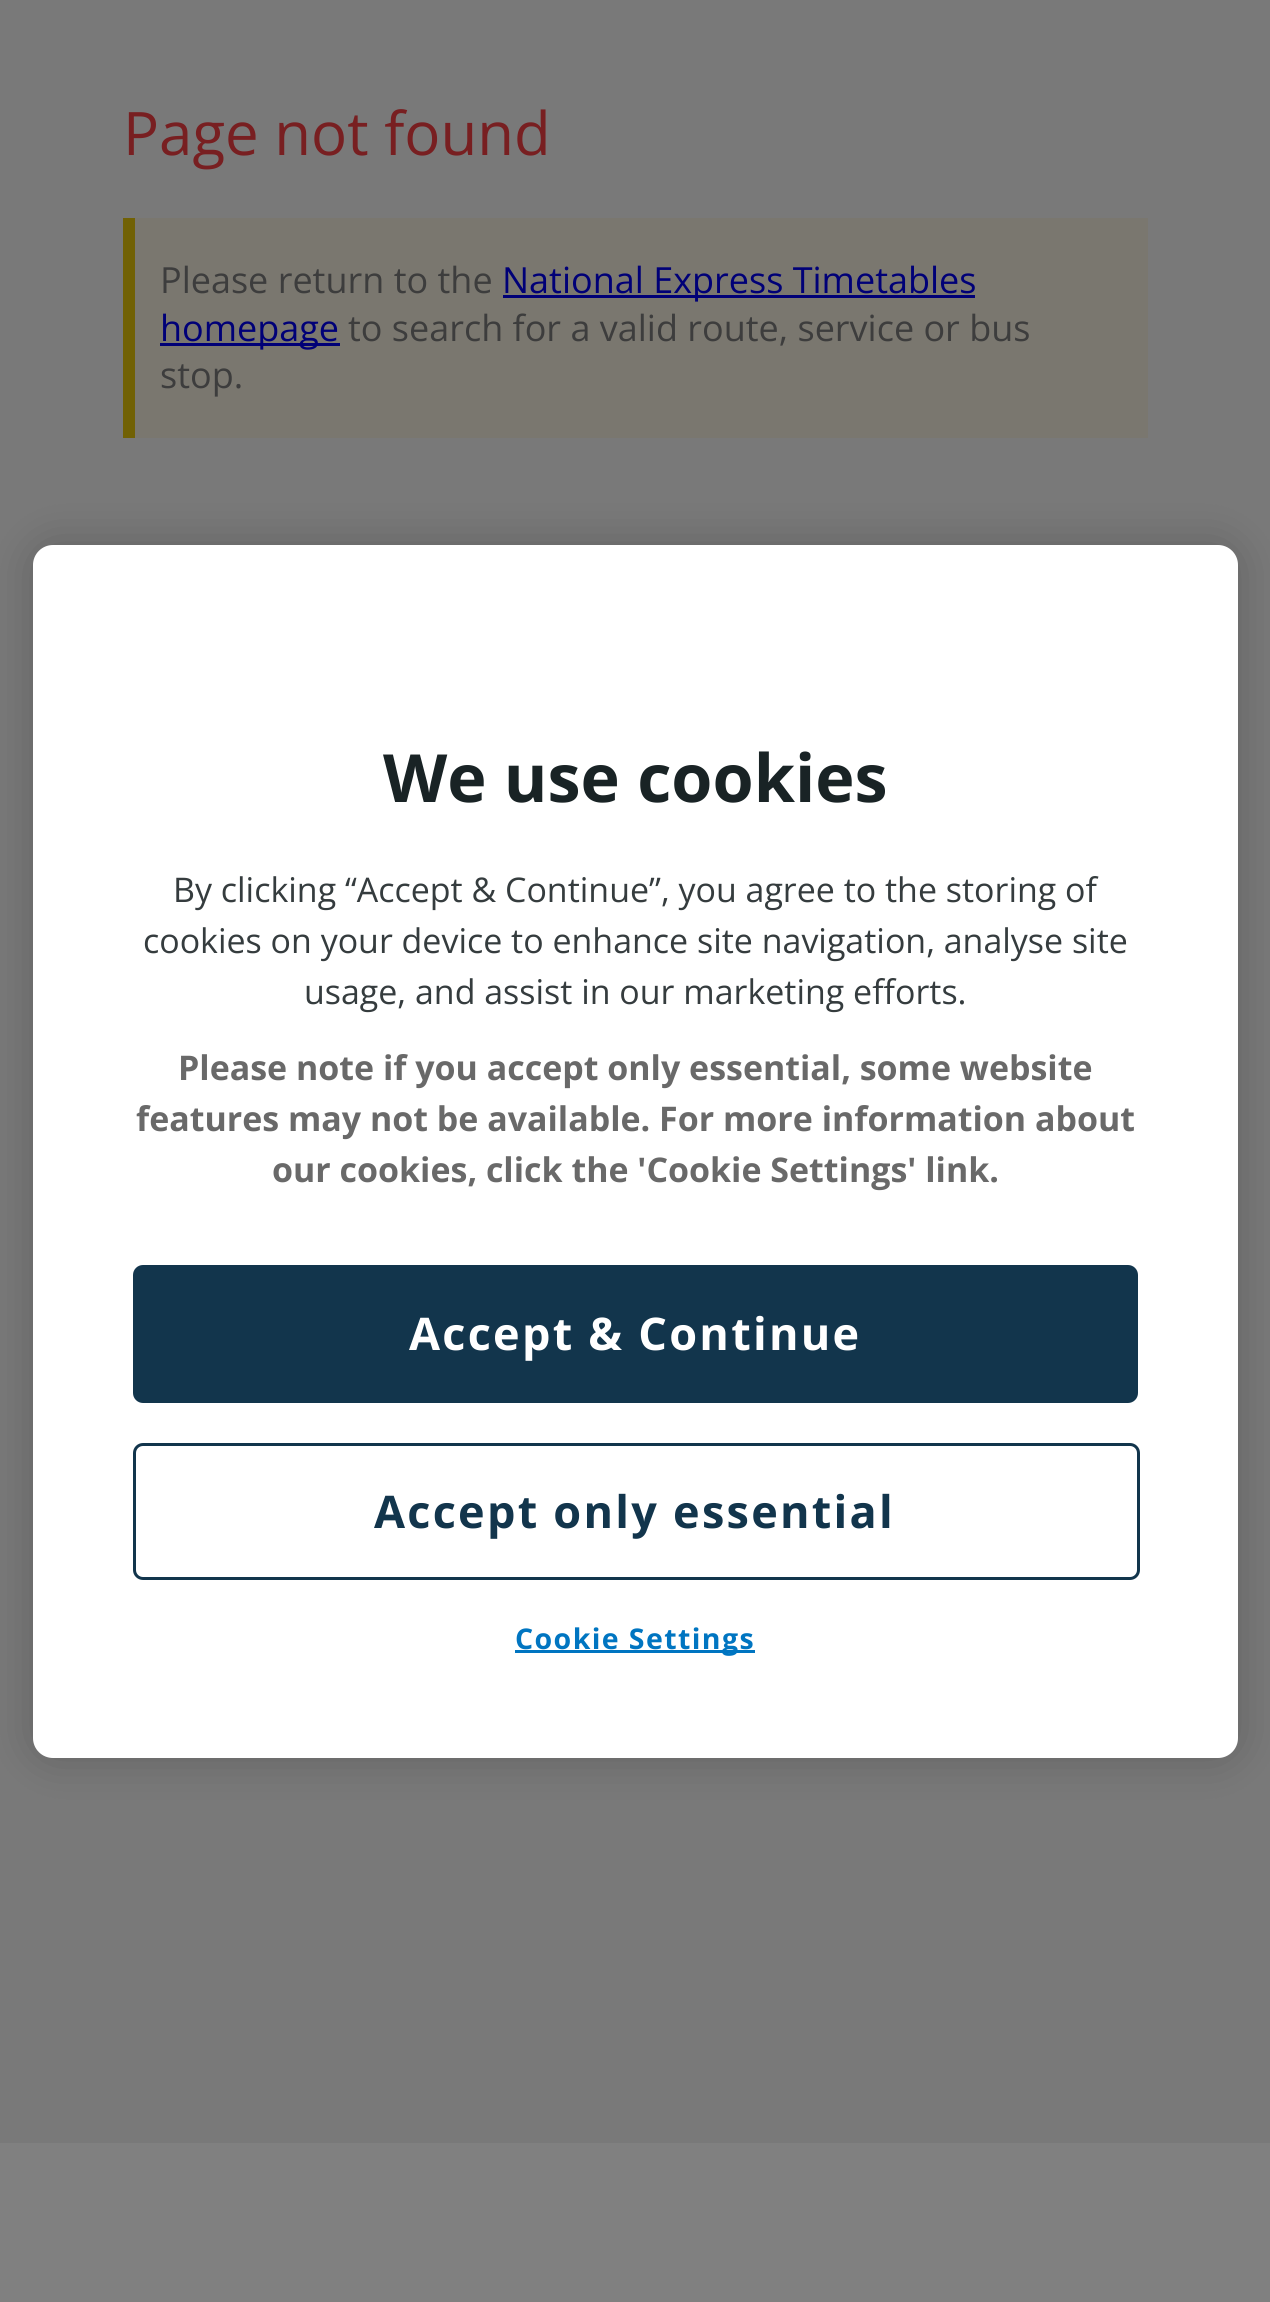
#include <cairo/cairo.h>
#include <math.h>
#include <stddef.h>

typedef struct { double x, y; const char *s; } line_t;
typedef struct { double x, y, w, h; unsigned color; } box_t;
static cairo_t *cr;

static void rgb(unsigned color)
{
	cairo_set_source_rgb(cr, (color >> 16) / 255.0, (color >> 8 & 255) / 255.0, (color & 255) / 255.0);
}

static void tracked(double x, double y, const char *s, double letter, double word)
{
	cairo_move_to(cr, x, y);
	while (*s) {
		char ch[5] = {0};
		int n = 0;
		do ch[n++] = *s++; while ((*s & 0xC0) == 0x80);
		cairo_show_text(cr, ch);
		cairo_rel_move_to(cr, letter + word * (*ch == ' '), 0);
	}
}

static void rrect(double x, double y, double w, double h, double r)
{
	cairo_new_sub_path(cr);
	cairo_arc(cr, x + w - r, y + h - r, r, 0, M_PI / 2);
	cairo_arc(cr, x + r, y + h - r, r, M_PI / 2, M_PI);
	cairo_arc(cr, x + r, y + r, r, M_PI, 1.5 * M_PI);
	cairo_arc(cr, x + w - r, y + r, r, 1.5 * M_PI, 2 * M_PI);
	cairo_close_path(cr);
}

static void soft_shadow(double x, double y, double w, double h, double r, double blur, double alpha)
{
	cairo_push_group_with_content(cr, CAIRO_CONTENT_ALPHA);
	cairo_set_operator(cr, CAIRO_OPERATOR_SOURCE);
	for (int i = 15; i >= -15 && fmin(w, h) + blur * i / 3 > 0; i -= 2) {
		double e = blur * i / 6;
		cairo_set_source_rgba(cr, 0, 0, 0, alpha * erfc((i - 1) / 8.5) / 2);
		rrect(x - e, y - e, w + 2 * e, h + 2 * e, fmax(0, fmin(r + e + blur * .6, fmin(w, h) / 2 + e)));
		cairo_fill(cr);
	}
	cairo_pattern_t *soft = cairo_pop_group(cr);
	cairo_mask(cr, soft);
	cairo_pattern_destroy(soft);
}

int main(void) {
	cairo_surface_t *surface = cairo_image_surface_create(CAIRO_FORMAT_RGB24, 1270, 2302);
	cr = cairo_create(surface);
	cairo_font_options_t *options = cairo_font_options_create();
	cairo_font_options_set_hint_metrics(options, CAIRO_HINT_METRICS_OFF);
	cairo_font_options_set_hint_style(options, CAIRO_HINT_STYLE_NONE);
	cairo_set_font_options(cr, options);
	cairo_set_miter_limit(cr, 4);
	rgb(0x808080);
	cairo_paint(cr);
	{
		static const box_t items[] = {
			{0, 0, 1270, 2143, 0x797979},
			{135, 218, 1013, 220, 0x7a776f},
			{123, 218, 12, 220, 0x716104},
			{503, 295, 472, 3, 0x000077},
			{160, 343, 180, 3, 0x000077},
		};
		for (size_t i = 0; i < sizeof items / sizeof *items; i++) {
			rgb(items[i].color);
			cairo_rectangle(cr, items[i].x, items[i].y, items[i].w, items[i].h);
			cairo_fill(cr);
		}
	}
	rgb(0x000000);
	soft_shadow(33, 545, 1205, 1213, 20, 22.5, 0.2);
	rgb(0xffffff);
	rrect(33, 545, 1205, 1213, 20);
	cairo_fill(cr);
	rgb(0x12354c);
	rrect(134.5, 1266.5, 1002, 135, 8.5);
	cairo_fill_preserve(cr);
	cairo_set_line_width(cr, 3);
	cairo_stroke(cr);
	rrect(134.5, 1444.5, 1004, 134, 8.5);
	cairo_stroke(cr);
	rgb(0x0075c1);
	cairo_rectangle(cr, 515, 1650, 240, 3);
	cairo_fill(cr);
	cairo_select_font_face(cr, "Open Sans", CAIRO_FONT_SLANT_NORMAL, CAIRO_FONT_WEIGHT_NORMAL);
	cairo_set_font_size(cr, 60);
	rgb(0x781f21);
	cairo_move_to(cr, 123, 155);
	cairo_show_text(cr, "Page not found");
	cairo_set_font_size(cr, 36);
	rgb(0x3d3d3d);
	cairo_move_to(cr, 160, 293);
	cairo_show_text(cr, "Please return to the");
	rgb(0x000077);
	cairo_move_to(cr, 502, 293);
	cairo_show_text(cr, "National Express Timetables");
	cairo_move_to(cr, 160, 341);
	cairo_show_text(cr, "homepage");
	rgb(0x3d3d3d);
	cairo_move_to(cr, 348, 341);
	cairo_show_text(cr, "to search for a valid route, service or bus");
	cairo_move_to(cr, 160, 388);
	cairo_show_text(cr, "stop.");
	cairo_select_font_face(cr, "Open Sans", CAIRO_FONT_SLANT_NORMAL, CAIRO_FONT_WEIGHT_BOLD);
	cairo_set_font_size(cr, 66.5);
	rgb(0x192325);
	cairo_move_to(cr, 383, 802);
	cairo_show_text(cr, "We use cookies");
	cairo_select_font_face(cr, "Open Sans", CAIRO_FONT_SLANT_NORMAL, CAIRO_FONT_WEIGHT_NORMAL);
	cairo_set_font_size(cr, 33.95);
	rgb(0x353c3e);
	{
		static const line_t items[] = {
			{173, 902, "By clicking “Accept & Continue”, you agree to the storing of"},
			{143, 953, "cookies on your device to enhance site navigation, analyse site"},
			{304, 1004, "usage, and assist in our marketing efforts."},
		};
		for (size_t i = 0; i < sizeof items / sizeof *items; i++) {
			cairo_move_to(cr, items[i].x, items[i].y);
			cairo_show_text(cr, items[i].s);
		}
	}
	cairo_select_font_face(cr, "Open Sans", CAIRO_FONT_SLANT_NORMAL, CAIRO_FONT_WEIGHT_BOLD);
	rgb(0x696969);
	{
		static const line_t items[] = {
			{178, 1080, "Please note if you accept only essential, some website"},
			{136, 1131, "features may not be available. For more information about"},
			{272, 1182, "our cookies, click the 'Cookie Settings' link."},
		};
		for (size_t i = 0; i < sizeof items / sizeof *items; i++) {
			cairo_move_to(cr, items[i].x, items[i].y);
			cairo_show_text(cr, items[i].s);
		}
	}
	cairo_set_font_size(cr, 45);
	rgb(0xffffff);
	tracked(409, 1350, "Accept & Continue", 2.25, 0);
	rgb(0x12354c);
	tracked(374, 1528, "Accept only essential", 2.25, 0);
	cairo_set_font_size(cr, 28.5);
	rgb(0x0075c1);
	tracked(515, 1649, "Cookie Settings", 1.4, 0);
	cairo_surface_write_to_png(surface, "page.png");
	cairo_font_options_destroy(options);
	cairo_destroy(cr);
	cairo_surface_destroy(surface);
	return 0;
}
